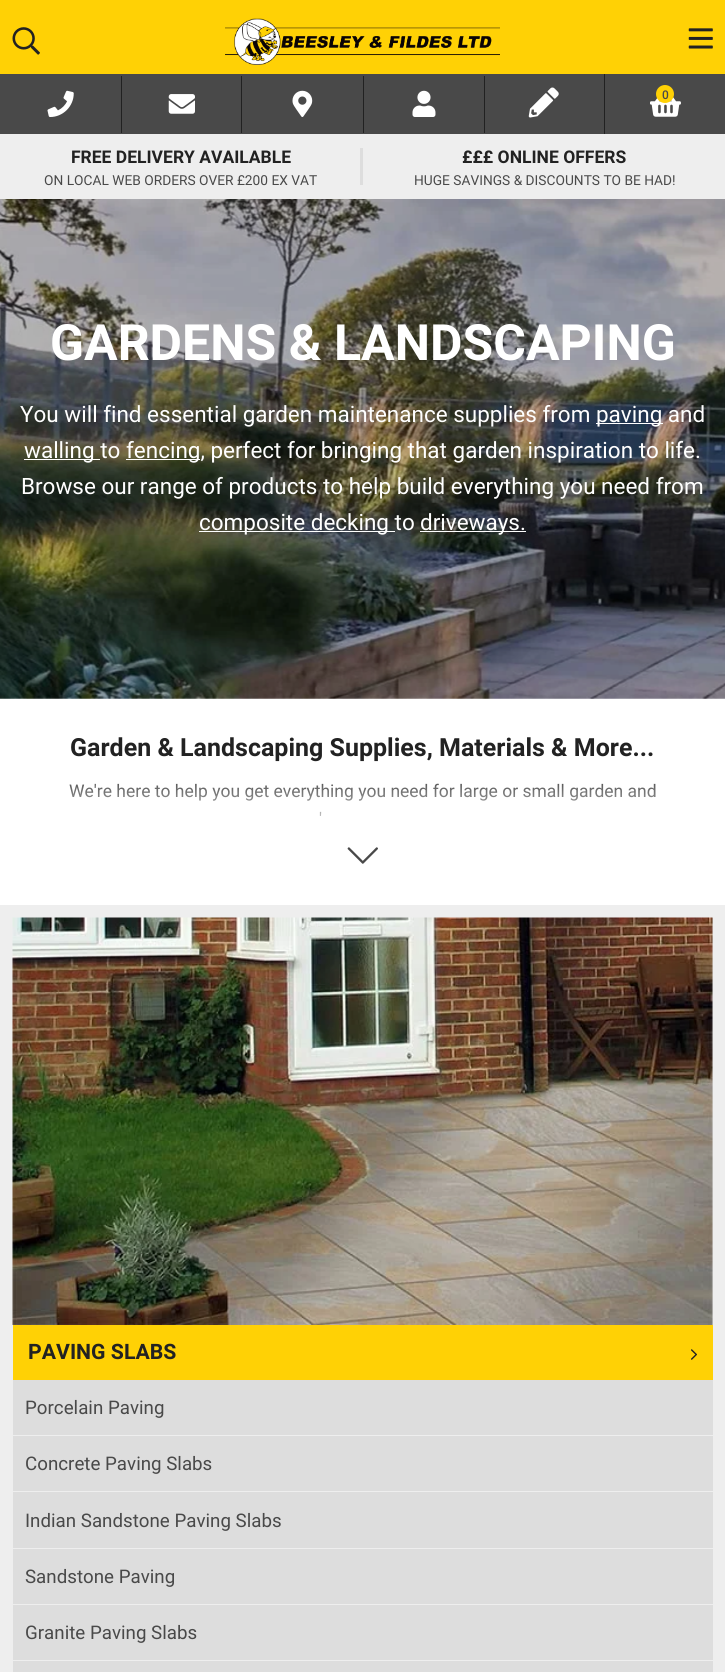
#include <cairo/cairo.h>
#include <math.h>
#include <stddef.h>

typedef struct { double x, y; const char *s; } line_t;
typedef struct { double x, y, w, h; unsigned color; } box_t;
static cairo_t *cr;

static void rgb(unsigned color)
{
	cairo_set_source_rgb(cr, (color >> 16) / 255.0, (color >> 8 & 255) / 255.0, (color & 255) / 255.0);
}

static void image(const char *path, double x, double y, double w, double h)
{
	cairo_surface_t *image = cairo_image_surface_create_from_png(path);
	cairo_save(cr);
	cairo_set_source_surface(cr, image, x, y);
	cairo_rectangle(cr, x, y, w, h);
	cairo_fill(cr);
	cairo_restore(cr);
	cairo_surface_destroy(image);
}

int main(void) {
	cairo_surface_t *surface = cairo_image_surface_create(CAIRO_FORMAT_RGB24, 725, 1672);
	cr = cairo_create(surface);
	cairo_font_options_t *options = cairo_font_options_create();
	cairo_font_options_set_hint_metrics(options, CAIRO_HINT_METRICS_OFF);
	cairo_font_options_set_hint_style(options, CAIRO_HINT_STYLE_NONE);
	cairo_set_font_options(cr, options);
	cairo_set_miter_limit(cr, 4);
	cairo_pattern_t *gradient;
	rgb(0xffffff);
	cairo_paint(cr);
	rgb(0xffd105);
	cairo_rectangle(cr, 0, 0, 725, 74);
	cairo_fill(cr);
	image("img/1.png", 12, 27, 28, 28);
	image("img/2.png", 225, 18, 275, 47);
	image("img/3.png", 688, 28, 25, 21);
	rgb(0x494949);
	cairo_rectangle(cr, 0, 74, 725, 60);
	cairo_fill(cr);
	image("img/4.png", 47, 90, 27, 27);
	rgb(0x212121);
	cairo_rectangle(cr, 121, 76, 1, 57);
	cairo_fill(cr);
	image("img/5.png", 168, 94, 27, 20);
	cairo_rectangle(cr, 241, 76, 1, 57);
	cairo_fill(cr);
	image("img/6.png", 292, 90, 21, 27);
	cairo_rectangle(cr, 363, 76, 1, 57);
	cairo_fill(cr);
	image("img/7.png", 412, 90, 24, 27);
	cairo_rectangle(cr, 484, 76, 1, 57);
	cairo_fill(cr);
	image("img/8.png", 528, 87, 31, 31);
	cairo_rectangle(cr, 604, 74, 1, 60);
	cairo_fill(cr);
	image("img/9.png", 650, 97, 31, 20);
	rgb(0xffd105);
	cairo_arc(cr, 665, 94, 9, 0, 2 * M_PI);
	cairo_fill(cr);
	rgb(0xeeeeee);
	cairo_rectangle(cr, 0, 134, 725, 65);
	cairo_fill(cr);
	rgb(0xdddddd);
	cairo_rectangle(cr, 360, 148, 3, 37);
	cairo_fill(cr);
	image("img/10.png", 0, 199, 725, 500);
	{
		static const box_t items[] = {
			{596, 423, 67, 1, 0xffffff},
			{24, 459, 76, 1, 0xffffff},
			{126, 459, 74, 1, 0xffffff},
			{199, 531, 196, 1, 0xffffff},
			{420, 531, 106, 1, 0xffffff},
		};
		for (size_t i = 0; i < sizeof items / sizeof *items; i++) {
			rgb(items[i].color);
			cairo_rectangle(cr, items[i].x, items[i].y, items[i].w, items[i].h);
			cairo_fill(cr);
		}
	}
	image("img/11.png", 347, 847, 31, 17);
	rgb(0xeeeeee);
	cairo_rectangle(cr, 0, 905, 725, 767);
	cairo_fill(cr);
	rgb(0xdddddd);
	cairo_rectangle(cr, 712, 918, 1, 407);
	cairo_fill(cr);
	image("img/12.png", 12, 917, 701, 408);
	rgb(0xffd105);
	cairo_rectangle(cr, 13, 1325, 700, 55);
	cairo_fill(cr);
	image("img/13.png", 691, 1349, 6, 11);
	{
		static const box_t items[] = {
			{13, 1380, 700, 292, 0xdddddd},
			{13, 1435, 700, 1, 0xeeeeee},
			{13, 1491, 700, 1, 0xeeeeee},
			{13, 1548, 700, 1, 0xeeeeee},
			{13, 1604, 700, 1, 0xeeeeee},
			{13, 1660, 700, 1, 0xeeeeee},
		};
		for (size_t i = 0; i < sizeof items / sizeof *items; i++) {
			rgb(items[i].color);
			cairo_rectangle(cr, items[i].x, items[i].y, items[i].w, items[i].h);
			cairo_fill(cr);
		}
	}
	cairo_select_font_face(cr, "Roboto Medium", CAIRO_FONT_SLANT_NORMAL, CAIRO_FONT_WEIGHT_NORMAL);
	cairo_set_font_size(cr, 12);
	rgb(0x494949);
	cairo_move_to(cr, 662, 99);
	cairo_show_text(cr, "0");
	cairo_select_font_face(cr, "Roboto", CAIRO_FONT_SLANT_NORMAL, CAIRO_FONT_WEIGHT_BOLD);
	cairo_set_font_size(cr, 17.5);
	rgb(0x222222);
	cairo_move_to(cr, 71, 163);
	cairo_show_text(cr, "FREE DELIVERY AVAILABLE");
	cairo_select_font_face(cr, "Roboto", CAIRO_FONT_SLANT_NORMAL, CAIRO_FONT_WEIGHT_NORMAL);
	cairo_set_font_size(cr, 13.75);
	rgb(0x494949);
	cairo_move_to(cr, 44, 185);
	cairo_show_text(cr, "ON LOCAL WEB ORDERS OVER £200 EX VAT");
	cairo_select_font_face(cr, "Roboto", CAIRO_FONT_SLANT_NORMAL, CAIRO_FONT_WEIGHT_BOLD);
	cairo_set_font_size(cr, 17.5);
	rgb(0x222222);
	cairo_move_to(cr, 462, 163);
	cairo_show_text(cr, "£££ ONLINE OFFERS");
	cairo_select_font_face(cr, "Roboto", CAIRO_FONT_SLANT_NORMAL, CAIRO_FONT_WEIGHT_NORMAL);
	cairo_set_font_size(cr, 13.75);
	rgb(0x494949);
	cairo_move_to(cr, 414, 185);
	cairo_show_text(cr, "HUGE SAVINGS & DISCOUNTS TO BE HAD!");
	cairo_select_font_face(cr, "Roboto", CAIRO_FONT_SLANT_NORMAL, CAIRO_FONT_WEIGHT_BOLD);
	cairo_set_font_size(cr, 50);
	rgb(0xffffff);
	cairo_move_to(cr, 50, 360);
	cairo_show_text(cr, "GARDENS & LANDSCAPING");
	cairo_select_font_face(cr, "Roboto", CAIRO_FONT_SLANT_NORMAL, CAIRO_FONT_WEIGHT_NORMAL);
	cairo_set_font_size(cr, 22.5);
	{
		static const line_t items[] = {
			{20, 422, "You will find essential garden maintenance supplies from"},
			{596, 422, "paving and"},
			{24, 458, "walling to"},
			{126, 458, "fencing, perfect for bringing that garden inspiration to life."},
			{21, 494, "Browse our range of products to help build everything you need from"},
			{199, 530, "composite decking to"},
			{420, 530, "driveways."},
		};
		for (size_t i = 0; i < sizeof items / sizeof *items; i++) {
			cairo_move_to(cr, items[i].x, items[i].y);
			cairo_show_text(cr, items[i].s);
		}
	}
	cairo_select_font_face(cr, "Roboto", CAIRO_FONT_SLANT_NORMAL, CAIRO_FONT_WEIGHT_BOLD);
	cairo_set_font_size(cr, 25);
	rgb(0x222222);
	cairo_move_to(cr, 70, 756);
	cairo_show_text(cr, "Garden & Landscaping Supplies, Materials & More...");
	cairo_select_font_face(cr, "Roboto", CAIRO_FONT_SLANT_NORMAL, CAIRO_FONT_WEIGHT_NORMAL);
	cairo_set_font_size(cr, 17.5);
	rgb(0x494949);
	cairo_move_to(cr, 69, 797);
	cairo_show_text(cr, "We're here to help you get everything you need for large or small garden and");
	cairo_move_to(cr, 319, 825);
	cairo_show_text(cr, "'");
	gradient = cairo_pattern_create_linear(363, 778, 363, 838);
	cairo_pattern_add_color_stop_rgba(gradient, 0, 1, 1, 1, 0);
	cairo_pattern_add_color_stop_rgba(gradient, 1, 1, 1, 1, 1);
	cairo_set_source(cr, gradient);
	cairo_pattern_destroy(gradient);
	cairo_rectangle(cr, 69, 783, 586, 33);
	cairo_fill(cr);
	cairo_select_font_face(cr, "Roboto", CAIRO_FONT_SLANT_NORMAL, CAIRO_FONT_WEIGHT_BOLD);
	cairo_set_font_size(cr, 21.25);
	rgb(0x222222);
	cairo_move_to(cr, 28, 1359);
	cairo_show_text(cr, "PAVING SLABS");
	cairo_select_font_face(cr, "Roboto", CAIRO_FONT_SLANT_NORMAL, CAIRO_FONT_WEIGHT_NORMAL);
	cairo_set_font_size(cr, 18.75);
	rgb(0x494949);
	{
		static const line_t items[] = {
			{25, 1414, "Porcelain Paving"},
			{25, 1470, "Concrete Paving Slabs"},
			{25, 1527, "Indian Sandstone Paving Slabs"},
			{25, 1583, "Sandstone Paving"},
			{25, 1639, "Granite Paving Slabs"},
		};
		for (size_t i = 0; i < sizeof items / sizeof *items; i++) {
			cairo_move_to(cr, items[i].x, items[i].y);
			cairo_show_text(cr, items[i].s);
		}
	}
	cairo_surface_write_to_png(surface, "page.png");
	cairo_font_options_destroy(options);
	cairo_destroy(cr);
	cairo_surface_destroy(surface);
	return 0;
}
